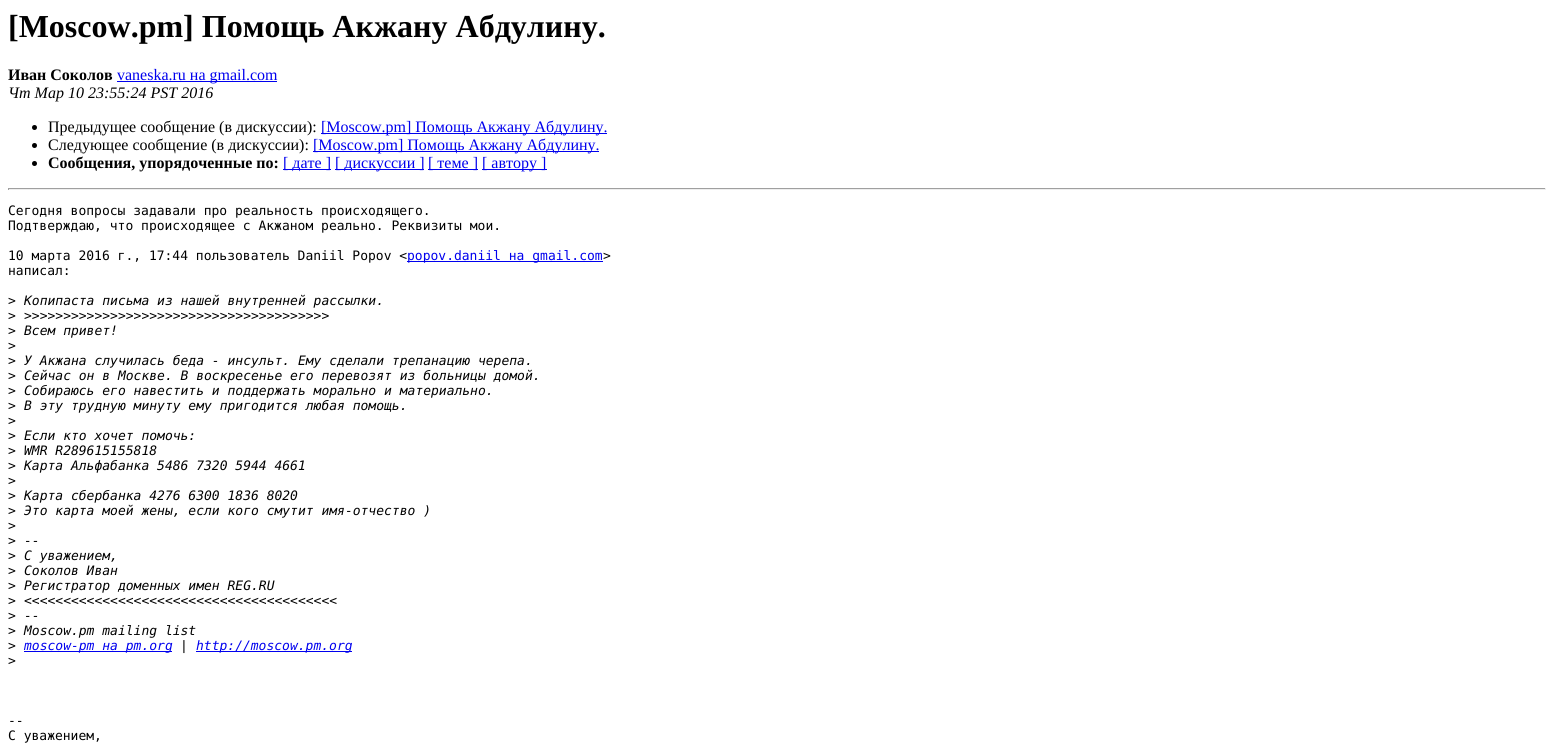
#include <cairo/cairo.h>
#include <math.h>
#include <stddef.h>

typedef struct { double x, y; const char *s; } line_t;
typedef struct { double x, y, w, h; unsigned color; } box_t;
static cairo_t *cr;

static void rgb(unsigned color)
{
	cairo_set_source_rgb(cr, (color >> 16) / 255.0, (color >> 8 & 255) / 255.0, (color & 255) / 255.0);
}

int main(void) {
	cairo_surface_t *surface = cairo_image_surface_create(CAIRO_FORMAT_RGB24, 1554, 749);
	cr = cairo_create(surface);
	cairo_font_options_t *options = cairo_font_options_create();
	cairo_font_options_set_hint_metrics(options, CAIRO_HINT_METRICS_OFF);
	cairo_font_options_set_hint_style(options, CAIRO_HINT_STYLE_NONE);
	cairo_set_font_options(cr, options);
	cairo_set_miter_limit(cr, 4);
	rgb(0xffffff);
	cairo_paint(cr);
	rgb(0x0000ee);
	cairo_rectangle(cr, 117, 81, 160, 1);
	cairo_fill(cr);
	rgb(0x000000);
	cairo_arc(cr, 34.5, 127.5, 2.5, 0, 2 * M_PI);
	cairo_fill(cr);
	rgb(0x0000ee);
	cairo_rectangle(cr, 321, 133, 286, 1);
	cairo_fill(cr);
	rgb(0x000000);
	cairo_arc(cr, 34.5, 145.5, 2.5, 0, 2 * M_PI);
	cairo_fill(cr);
	rgb(0x0000ee);
	cairo_rectangle(cr, 313, 151, 286, 1);
	cairo_fill(cr);
	rgb(0x000000);
	cairo_arc(cr, 34.5, 163.5, 2.5, 0, 2 * M_PI);
	cairo_fill(cr);
	{
		static const box_t items[] = {
			{283, 169, 48, 1, 0x0000ee},
			{335, 169, 89, 1, 0x0000ee},
			{428, 169, 50, 1, 0x0000ee},
			{482, 169, 65, 1, 0x0000ee},
			{8, 188, 1538, 1, 0x9f9f9f},
			{1545, 188, 1, 2, 0xeeeeee},
			{8, 189, 1538, 1, 0xeeeeee},
			{8, 188, 1, 2, 0x9f9f9f},
			{407, 261, 196, 1, 0x0000ee},
			{24, 651, 148, 1, 0x0000ee},
			{196, 651, 156, 1, 0x0000ee},
		};
		for (size_t i = 0; i < sizeof items / sizeof *items; i++) {
			rgb(items[i].color);
			cairo_rectangle(cr, items[i].x, items[i].y, items[i].w, items[i].h);
			cairo_fill(cr);
		}
	}
	cairo_select_font_face(cr, "Liberation Serif", CAIRO_FONT_SLANT_NORMAL, CAIRO_FONT_WEIGHT_BOLD);
	cairo_set_font_size(cr, 32);
	rgb(0x000000);
	cairo_move_to(cr, 8, 37);
	cairo_show_text(cr, "[Moscow.pm] Помощь Акжану Абдулину.");
	cairo_set_font_size(cr, 16);
	cairo_move_to(cr, 8, 80);
	cairo_show_text(cr, "Иван Соколов");
	cairo_select_font_face(cr, "Liberation Serif", CAIRO_FONT_SLANT_NORMAL, CAIRO_FONT_WEIGHT_NORMAL);
	rgb(0x0000ee);
	cairo_move_to(cr, 117, 80);
	cairo_show_text(cr, "vaneska.ru на gmail.com");
	cairo_select_font_face(cr, "Liberation Serif", CAIRO_FONT_SLANT_ITALIC, CAIRO_FONT_WEIGHT_NORMAL);
	rgb(0x000000);
	cairo_move_to(cr, 8, 98);
	cairo_show_text(cr, "Чт Мар 10 23:55:24 PST 2016");
	cairo_select_font_face(cr, "Liberation Serif", CAIRO_FONT_SLANT_NORMAL, CAIRO_FONT_WEIGHT_NORMAL);
	cairo_move_to(cr, 48, 132);
	cairo_show_text(cr, "Предыдущее сообщение (в дискуссии):");
	rgb(0x0000ee);
	cairo_move_to(cr, 321, 132);
	cairo_show_text(cr, "[Moscow.pm] Помощь Акжану Абдулину.");
	rgb(0x000000);
	cairo_move_to(cr, 48, 150);
	cairo_show_text(cr, "Следующее сообщение (в дискуссии):");
	rgb(0x0000ee);
	cairo_move_to(cr, 313, 150);
	cairo_show_text(cr, "[Moscow.pm] Помощь Акжану Абдулину.");
	cairo_select_font_face(cr, "Liberation Serif", CAIRO_FONT_SLANT_NORMAL, CAIRO_FONT_WEIGHT_BOLD);
	rgb(0x000000);
	cairo_move_to(cr, 48, 168);
	cairo_show_text(cr, "Сообщения, упорядоченные по:");
	cairo_select_font_face(cr, "Liberation Serif", CAIRO_FONT_SLANT_NORMAL, CAIRO_FONT_WEIGHT_NORMAL);
	rgb(0x0000ee);
	{
		static const line_t items[] = {
			{283, 168, "[ дате ]"},
			{335, 168, "[ дискуссии ]"},
			{428, 168, "[ теме ]"},
			{482, 168, "[ автору ]"},
		};
		for (size_t i = 0; i < sizeof items / sizeof *items; i++) {
			cairo_move_to(cr, items[i].x, items[i].y);
			cairo_show_text(cr, items[i].s);
		}
	}
	cairo_select_font_face(cr, "DejaVu Sans Mono", CAIRO_FONT_SLANT_NORMAL, CAIRO_FONT_WEIGHT_NORMAL);
	cairo_set_font_size(cr, 13);
	rgb(0x000000);
	{
		static const line_t items[] = {
			{8, 215, "Сегодня вопросы задавали про реальность происходящего."},
			{8, 230, "Подтверждаю, что происходящее с Акжаном реально. Реквизиты мои."},
			{8, 260, "10 марта 2016 г., 17:44 пользователь Daniil Popov <"},
		};
		for (size_t i = 0; i < sizeof items / sizeof *items; i++) {
			cairo_move_to(cr, items[i].x, items[i].y);
			cairo_show_text(cr, items[i].s);
		}
	}
	rgb(0x0000ee);
	cairo_move_to(cr, 407, 260);
	cairo_show_text(cr, "popov.daniil на gmail.com");
	rgb(0x000000);
	{
		static const line_t items[] = {
			{603, 260, ">"},
			{8, 275, "написал:"},
			{8, 305, ">"},
		};
		for (size_t i = 0; i < sizeof items / sizeof *items; i++) {
			cairo_move_to(cr, items[i].x, items[i].y);
			cairo_show_text(cr, items[i].s);
		}
	}
	cairo_select_font_face(cr, "DejaVu Sans Mono", CAIRO_FONT_SLANT_ITALIC, CAIRO_FONT_WEIGHT_NORMAL);
	cairo_move_to(cr, 24, 305);
	cairo_show_text(cr, "Копипаста письма из нашей внутренней рассылки.");
	cairo_select_font_face(cr, "DejaVu Sans Mono", CAIRO_FONT_SLANT_NORMAL, CAIRO_FONT_WEIGHT_NORMAL);
	cairo_move_to(cr, 8, 320);
	cairo_show_text(cr, ">");
	cairo_select_font_face(cr, "DejaVu Sans Mono", CAIRO_FONT_SLANT_ITALIC, CAIRO_FONT_WEIGHT_NORMAL);
	cairo_move_to(cr, 24, 320);
	cairo_show_text(cr, ">>>>>>>>>>>>>>>>>>>>>>>>>>>>>>>>>>>>>>>");
	cairo_select_font_face(cr, "DejaVu Sans Mono", CAIRO_FONT_SLANT_NORMAL, CAIRO_FONT_WEIGHT_NORMAL);
	cairo_move_to(cr, 8, 335);
	cairo_show_text(cr, ">");
	cairo_select_font_face(cr, "DejaVu Sans Mono", CAIRO_FONT_SLANT_ITALIC, CAIRO_FONT_WEIGHT_NORMAL);
	cairo_move_to(cr, 24, 335);
	cairo_show_text(cr, "Всем привет!");
	cairo_select_font_face(cr, "DejaVu Sans Mono", CAIRO_FONT_SLANT_NORMAL, CAIRO_FONT_WEIGHT_NORMAL);
	cairo_move_to(cr, 8, 350);
	cairo_show_text(cr, ">");
	cairo_move_to(cr, 8, 365);
	cairo_show_text(cr, ">");
	cairo_select_font_face(cr, "DejaVu Sans Mono", CAIRO_FONT_SLANT_ITALIC, CAIRO_FONT_WEIGHT_NORMAL);
	cairo_move_to(cr, 24, 365);
	cairo_show_text(cr, "У Акжана случилась беда - инсульт. Ему сделали трепанацию черепа.");
	cairo_select_font_face(cr, "DejaVu Sans Mono", CAIRO_FONT_SLANT_NORMAL, CAIRO_FONT_WEIGHT_NORMAL);
	cairo_move_to(cr, 8, 380);
	cairo_show_text(cr, ">");
	cairo_select_font_face(cr, "DejaVu Sans Mono", CAIRO_FONT_SLANT_ITALIC, CAIRO_FONT_WEIGHT_NORMAL);
	cairo_move_to(cr, 24, 380);
	cairo_show_text(cr, "Сейчас он в Москве. В воскресенье его перевозят из больницы домой.");
	cairo_select_font_face(cr, "DejaVu Sans Mono", CAIRO_FONT_SLANT_NORMAL, CAIRO_FONT_WEIGHT_NORMAL);
	cairo_move_to(cr, 8, 395);
	cairo_show_text(cr, ">");
	cairo_select_font_face(cr, "DejaVu Sans Mono", CAIRO_FONT_SLANT_ITALIC, CAIRO_FONT_WEIGHT_NORMAL);
	cairo_move_to(cr, 24, 395);
	cairo_show_text(cr, "Собираюсь его навестить и поддержать морально и материально.");
	cairo_select_font_face(cr, "DejaVu Sans Mono", CAIRO_FONT_SLANT_NORMAL, CAIRO_FONT_WEIGHT_NORMAL);
	cairo_move_to(cr, 8, 410);
	cairo_show_text(cr, ">");
	cairo_select_font_face(cr, "DejaVu Sans Mono", CAIRO_FONT_SLANT_ITALIC, CAIRO_FONT_WEIGHT_NORMAL);
	cairo_move_to(cr, 24, 410);
	cairo_show_text(cr, "В эту трудную минуту ему пригодится любая помощь.");
	cairo_select_font_face(cr, "DejaVu Sans Mono", CAIRO_FONT_SLANT_NORMAL, CAIRO_FONT_WEIGHT_NORMAL);
	cairo_move_to(cr, 8, 425);
	cairo_show_text(cr, ">");
	cairo_move_to(cr, 8, 440);
	cairo_show_text(cr, ">");
	cairo_select_font_face(cr, "DejaVu Sans Mono", CAIRO_FONT_SLANT_ITALIC, CAIRO_FONT_WEIGHT_NORMAL);
	cairo_move_to(cr, 24, 440);
	cairo_show_text(cr, "Если кто хочет помочь:");
	cairo_select_font_face(cr, "DejaVu Sans Mono", CAIRO_FONT_SLANT_NORMAL, CAIRO_FONT_WEIGHT_NORMAL);
	cairo_move_to(cr, 8, 455);
	cairo_show_text(cr, ">");
	cairo_select_font_face(cr, "DejaVu Sans Mono", CAIRO_FONT_SLANT_ITALIC, CAIRO_FONT_WEIGHT_NORMAL);
	cairo_move_to(cr, 24, 455);
	cairo_show_text(cr, "WMR R289615155818");
	cairo_select_font_face(cr, "DejaVu Sans Mono", CAIRO_FONT_SLANT_NORMAL, CAIRO_FONT_WEIGHT_NORMAL);
	cairo_move_to(cr, 8, 470);
	cairo_show_text(cr, ">");
	cairo_select_font_face(cr, "DejaVu Sans Mono", CAIRO_FONT_SLANT_ITALIC, CAIRO_FONT_WEIGHT_NORMAL);
	cairo_move_to(cr, 24, 470);
	cairo_show_text(cr, "Карта Альфабанка 5486 7320 5944 4661");
	cairo_select_font_face(cr, "DejaVu Sans Mono", CAIRO_FONT_SLANT_NORMAL, CAIRO_FONT_WEIGHT_NORMAL);
	cairo_move_to(cr, 8, 485);
	cairo_show_text(cr, ">");
	cairo_move_to(cr, 8, 500);
	cairo_show_text(cr, ">");
	cairo_select_font_face(cr, "DejaVu Sans Mono", CAIRO_FONT_SLANT_ITALIC, CAIRO_FONT_WEIGHT_NORMAL);
	cairo_move_to(cr, 24, 500);
	cairo_show_text(cr, "Карта сбербанка 4276 6300 1836 8020");
	cairo_select_font_face(cr, "DejaVu Sans Mono", CAIRO_FONT_SLANT_NORMAL, CAIRO_FONT_WEIGHT_NORMAL);
	cairo_move_to(cr, 8, 515);
	cairo_show_text(cr, ">");
	cairo_select_font_face(cr, "DejaVu Sans Mono", CAIRO_FONT_SLANT_ITALIC, CAIRO_FONT_WEIGHT_NORMAL);
	cairo_move_to(cr, 24, 515);
	cairo_show_text(cr, "Это карта моей жены, если кого смутит имя-отчество )");
	cairo_select_font_face(cr, "DejaVu Sans Mono", CAIRO_FONT_SLANT_NORMAL, CAIRO_FONT_WEIGHT_NORMAL);
	cairo_move_to(cr, 8, 530);
	cairo_show_text(cr, ">");
	cairo_move_to(cr, 8, 545);
	cairo_show_text(cr, ">");
	cairo_select_font_face(cr, "DejaVu Sans Mono", CAIRO_FONT_SLANT_ITALIC, CAIRO_FONT_WEIGHT_NORMAL);
	cairo_move_to(cr, 24, 545);
	cairo_show_text(cr, "--");
	cairo_select_font_face(cr, "DejaVu Sans Mono", CAIRO_FONT_SLANT_NORMAL, CAIRO_FONT_WEIGHT_NORMAL);
	cairo_move_to(cr, 8, 560);
	cairo_show_text(cr, ">");
	cairo_select_font_face(cr, "DejaVu Sans Mono", CAIRO_FONT_SLANT_ITALIC, CAIRO_FONT_WEIGHT_NORMAL);
	cairo_move_to(cr, 24, 560);
	cairo_show_text(cr, "С уважением,");
	cairo_select_font_face(cr, "DejaVu Sans Mono", CAIRO_FONT_SLANT_NORMAL, CAIRO_FONT_WEIGHT_NORMAL);
	cairo_move_to(cr, 8, 575);
	cairo_show_text(cr, ">");
	cairo_select_font_face(cr, "DejaVu Sans Mono", CAIRO_FONT_SLANT_ITALIC, CAIRO_FONT_WEIGHT_NORMAL);
	cairo_move_to(cr, 24, 575);
	cairo_show_text(cr, "Соколов Иван");
	cairo_select_font_face(cr, "DejaVu Sans Mono", CAIRO_FONT_SLANT_NORMAL, CAIRO_FONT_WEIGHT_NORMAL);
	cairo_move_to(cr, 8, 590);
	cairo_show_text(cr, ">");
	cairo_select_font_face(cr, "DejaVu Sans Mono", CAIRO_FONT_SLANT_ITALIC, CAIRO_FONT_WEIGHT_NORMAL);
	cairo_move_to(cr, 24, 590);
	cairo_show_text(cr, "Регистратор доменных имен REG.RU");
	cairo_select_font_face(cr, "DejaVu Sans Mono", CAIRO_FONT_SLANT_NORMAL, CAIRO_FONT_WEIGHT_NORMAL);
	cairo_move_to(cr, 8, 605);
	cairo_show_text(cr, ">");
	cairo_select_font_face(cr, "DejaVu Sans Mono", CAIRO_FONT_SLANT_ITALIC, CAIRO_FONT_WEIGHT_NORMAL);
	cairo_move_to(cr, 24, 605);
	cairo_show_text(cr, "<<<<<<<<<<<<<<<<<<<<<<<<<<<<<<<<<<<<<<<<");
	cairo_select_font_face(cr, "DejaVu Sans Mono", CAIRO_FONT_SLANT_NORMAL, CAIRO_FONT_WEIGHT_NORMAL);
	cairo_move_to(cr, 8, 620);
	cairo_show_text(cr, ">");
	cairo_select_font_face(cr, "DejaVu Sans Mono", CAIRO_FONT_SLANT_ITALIC, CAIRO_FONT_WEIGHT_NORMAL);
	cairo_move_to(cr, 24, 620);
	cairo_show_text(cr, "--");
	cairo_select_font_face(cr, "DejaVu Sans Mono", CAIRO_FONT_SLANT_NORMAL, CAIRO_FONT_WEIGHT_NORMAL);
	cairo_move_to(cr, 8, 635);
	cairo_show_text(cr, ">");
	cairo_select_font_face(cr, "DejaVu Sans Mono", CAIRO_FONT_SLANT_ITALIC, CAIRO_FONT_WEIGHT_NORMAL);
	cairo_move_to(cr, 24, 635);
	cairo_show_text(cr, "Moscow.pm mailing list");
	cairo_select_font_face(cr, "DejaVu Sans Mono", CAIRO_FONT_SLANT_NORMAL, CAIRO_FONT_WEIGHT_NORMAL);
	cairo_move_to(cr, 8, 650);
	cairo_show_text(cr, ">");
	cairo_select_font_face(cr, "DejaVu Sans Mono", CAIRO_FONT_SLANT_ITALIC, CAIRO_FONT_WEIGHT_NORMAL);
	rgb(0x0000ee);
	cairo_move_to(cr, 24, 650);
	cairo_show_text(cr, "moscow-pm на pm.org");
	rgb(0x000000);
	cairo_move_to(cr, 180, 650);
	cairo_show_text(cr, "|");
	rgb(0x0000ee);
	cairo_move_to(cr, 196, 650);
	cairo_show_text(cr, "http://moscow.pm.org");
	cairo_select_font_face(cr, "DejaVu Sans Mono", CAIRO_FONT_SLANT_NORMAL, CAIRO_FONT_WEIGHT_NORMAL);
	rgb(0x000000);
	{
		static const line_t items[] = {
			{8, 665, ">"},
			{8, 725, "--"},
			{8, 740, "С уважением,"},
		};
		for (size_t i = 0; i < sizeof items / sizeof *items; i++) {
			cairo_move_to(cr, items[i].x, items[i].y);
			cairo_show_text(cr, items[i].s);
		}
	}
	cairo_surface_write_to_png(surface, "page.png");
	cairo_font_options_destroy(options);
	cairo_destroy(cr);
	cairo_surface_destroy(surface);
	return 0;
}
